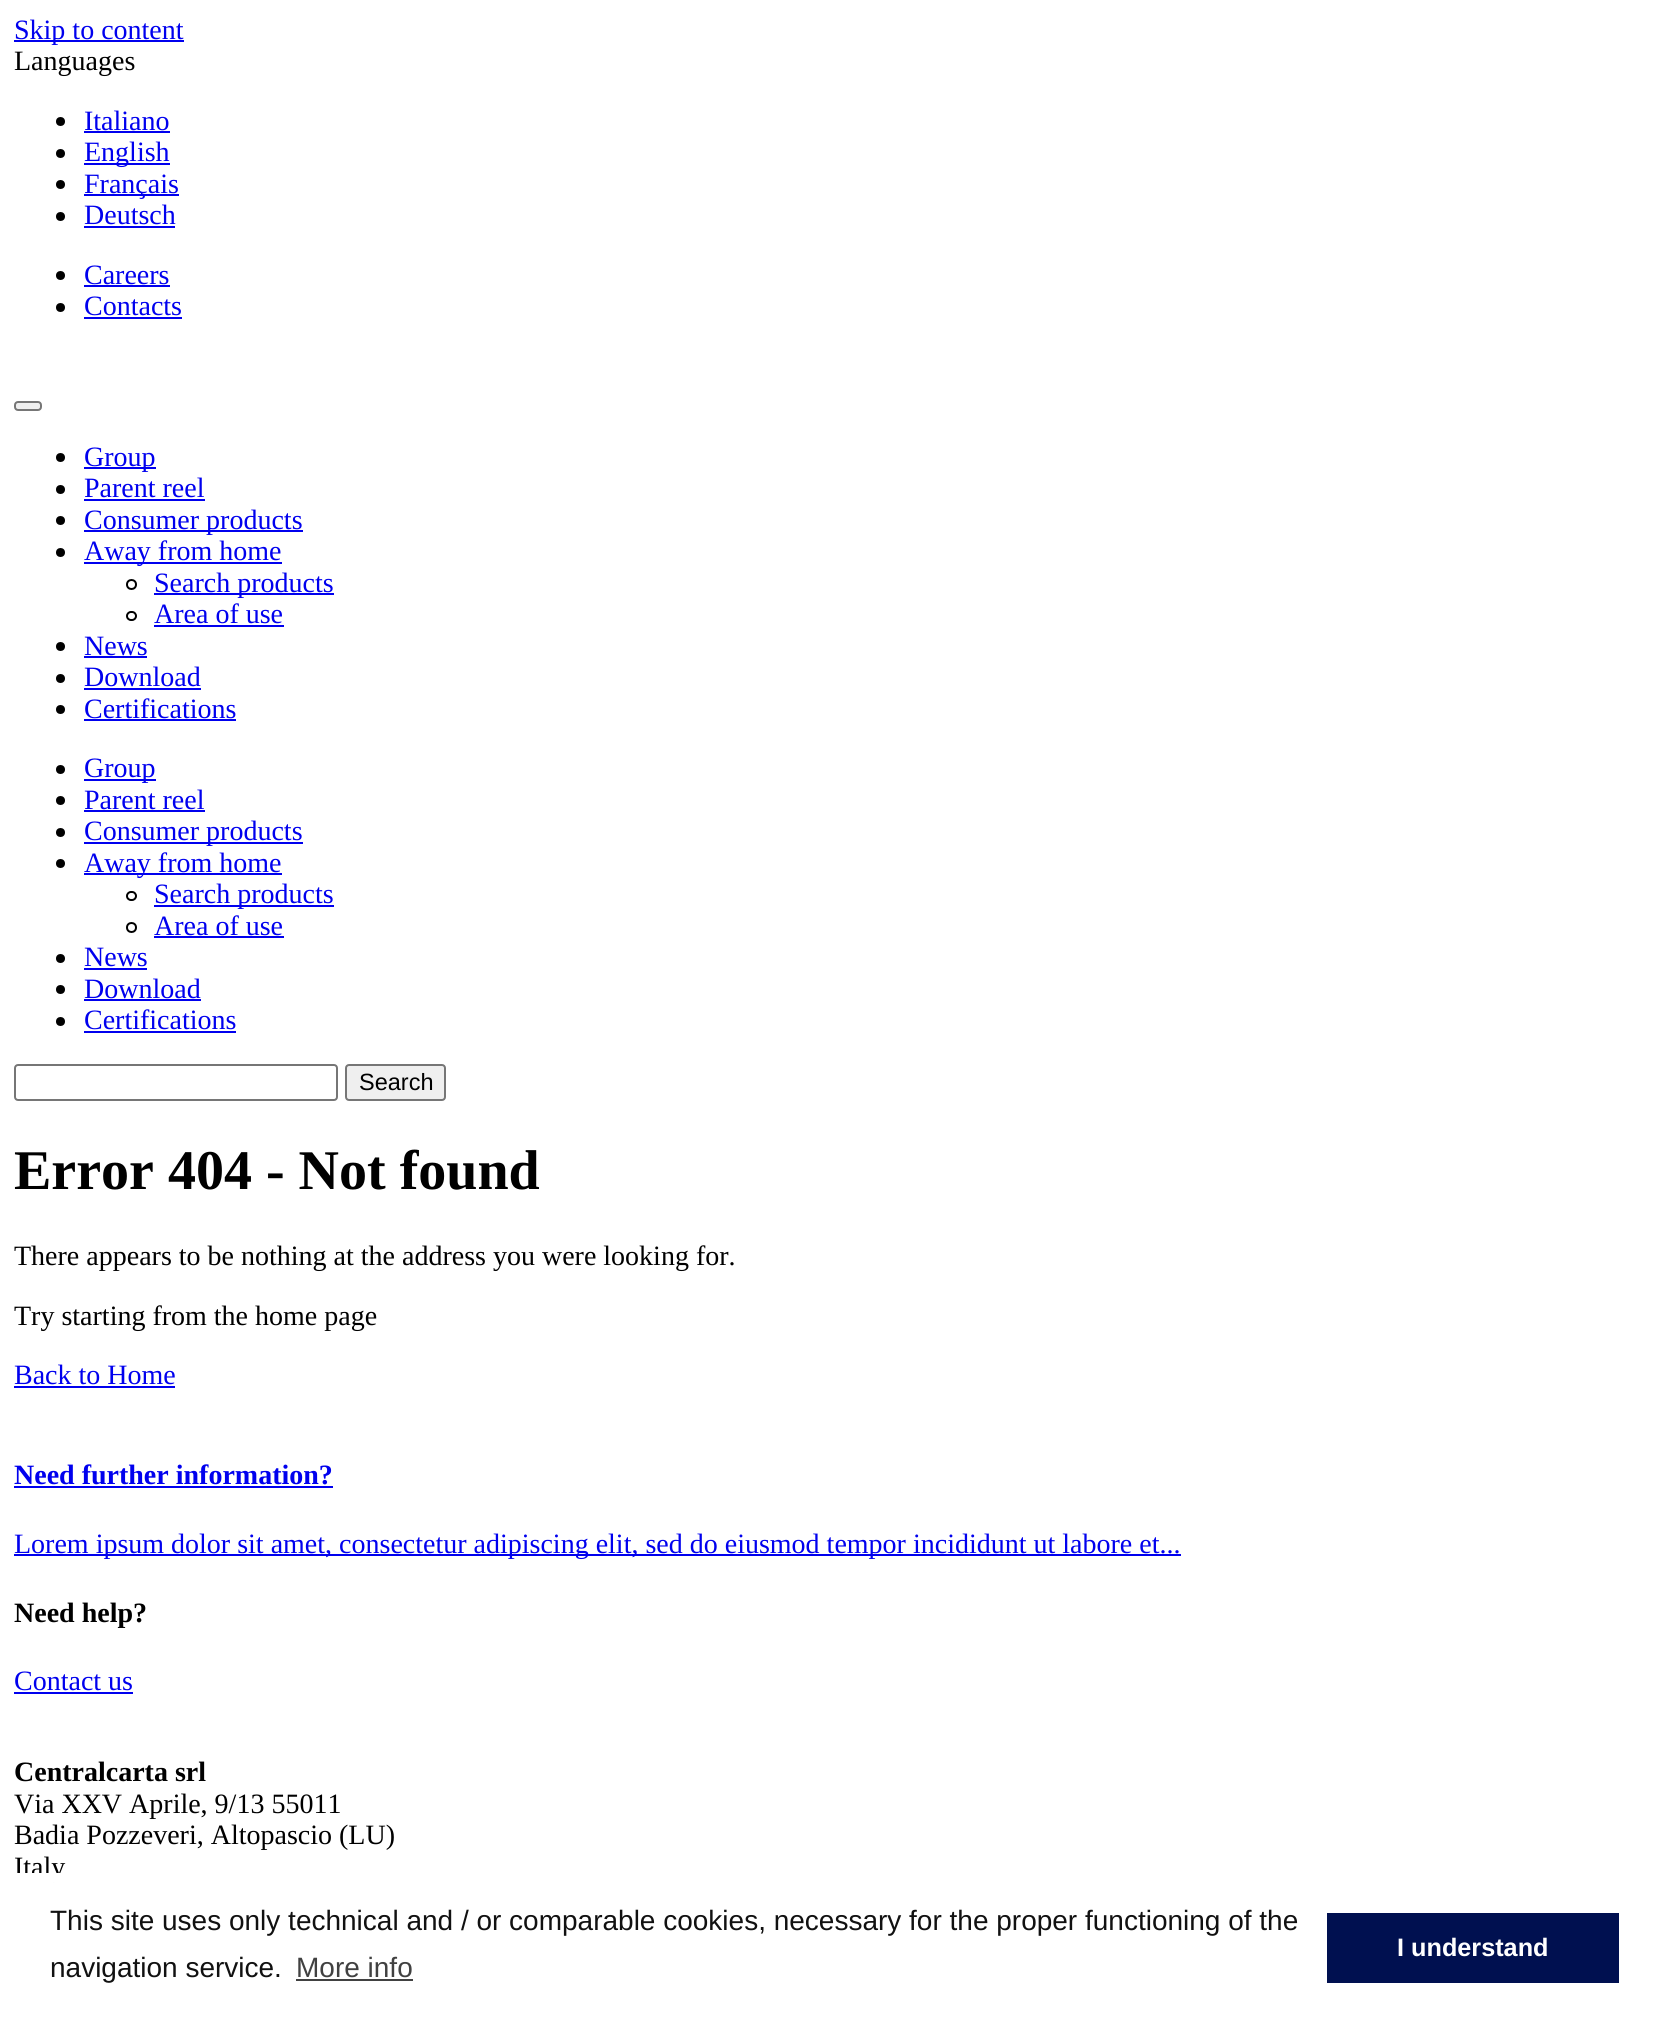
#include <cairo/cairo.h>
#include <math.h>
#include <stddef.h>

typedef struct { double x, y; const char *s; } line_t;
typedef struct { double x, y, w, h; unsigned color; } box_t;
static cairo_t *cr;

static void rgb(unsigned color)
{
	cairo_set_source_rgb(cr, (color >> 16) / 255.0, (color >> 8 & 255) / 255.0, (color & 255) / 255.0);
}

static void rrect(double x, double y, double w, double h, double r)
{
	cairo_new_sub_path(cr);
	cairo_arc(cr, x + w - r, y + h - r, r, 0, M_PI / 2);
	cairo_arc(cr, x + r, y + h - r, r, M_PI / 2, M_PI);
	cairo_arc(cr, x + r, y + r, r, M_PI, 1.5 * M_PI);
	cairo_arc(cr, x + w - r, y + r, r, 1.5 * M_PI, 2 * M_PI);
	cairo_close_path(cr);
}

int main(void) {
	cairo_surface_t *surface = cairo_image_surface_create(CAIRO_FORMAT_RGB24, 1668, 2023);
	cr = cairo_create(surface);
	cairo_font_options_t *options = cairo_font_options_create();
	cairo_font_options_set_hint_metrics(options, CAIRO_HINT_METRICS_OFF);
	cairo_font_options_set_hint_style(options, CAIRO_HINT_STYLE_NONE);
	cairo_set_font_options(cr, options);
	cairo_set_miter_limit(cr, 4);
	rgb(0xffffff);
	cairo_paint(cr);
	rgb(0x0000ee);
	cairo_rectangle(cr, 14, 40, 170, 2);
	cairo_fill(cr);
	rgb(0x000000);
	cairo_arc(cr, 60.5, 121.5, 4.5, 0, 2 * M_PI);
	cairo_fill(cr);
	rgb(0x0000ee);
	cairo_rectangle(cr, 84, 131, 86, 2);
	cairo_fill(cr);
	rgb(0x000000);
	cairo_arc(cr, 60.5, 153.5, 4.5, 0, 2 * M_PI);
	cairo_fill(cr);
	rgb(0x0000ee);
	cairo_rectangle(cr, 84, 163, 86, 2);
	cairo_fill(cr);
	rgb(0x000000);
	cairo_arc(cr, 60.5, 184.5, 4.5, 0, 2 * M_PI);
	cairo_fill(cr);
	rgb(0x0000ee);
	cairo_rectangle(cr, 84, 194, 95, 2);
	cairo_fill(cr);
	rgb(0x000000);
	cairo_arc(cr, 60.5, 216.5, 4.5, 0, 2 * M_PI);
	cairo_fill(cr);
	rgb(0x0000ee);
	cairo_rectangle(cr, 84, 226, 91, 2);
	cairo_fill(cr);
	rgb(0x000000);
	cairo_arc(cr, 60.5, 275.5, 4.5, 0, 2 * M_PI);
	cairo_fill(cr);
	rgb(0x0000ee);
	cairo_rectangle(cr, 84, 285, 86, 2);
	cairo_fill(cr);
	rgb(0x000000);
	cairo_arc(cr, 60.5, 307.5, 4.5, 0, 2 * M_PI);
	cairo_fill(cr);
	rgb(0x0000ee);
	cairo_rectangle(cr, 84, 317, 98, 2);
	cairo_fill(cr);
	rgb(0xefefef);
	rrect(15, 402, 26, 8, 3);
	cairo_fill_preserve(cr);
	rgb(0x767676);
	cairo_stroke(cr);
	rgb(0x000000);
	cairo_arc(cr, 60.5, 457.5, 4.5, 0, 2 * M_PI);
	cairo_fill(cr);
	rgb(0x0000ee);
	cairo_rectangle(cr, 84, 467, 72, 2);
	cairo_fill(cr);
	rgb(0x000000);
	cairo_arc(cr, 60.5, 489.5, 4.5, 0, 2 * M_PI);
	cairo_fill(cr);
	rgb(0x0000ee);
	cairo_rectangle(cr, 84, 499, 121, 2);
	cairo_fill(cr);
	rgb(0x000000);
	cairo_arc(cr, 60.5, 520.5, 4.5, 0, 2 * M_PI);
	cairo_fill(cr);
	rgb(0x0000ee);
	cairo_rectangle(cr, 84, 530, 219, 2);
	cairo_fill(cr);
	rgb(0x000000);
	cairo_arc(cr, 60.5, 552.5, 4.5, 0, 2 * M_PI);
	cairo_fill(cr);
	rgb(0x0000ee);
	cairo_rectangle(cr, 84, 562, 198, 2);
	cairo_fill(cr);
	cairo_arc(cr, 131.5, 584.5, 4.5, 0, 2 * M_PI);
	rgb(0x000000);
	cairo_stroke(cr);
	rgb(0x0000ee);
	cairo_rectangle(cr, 154, 593, 180, 2);
	cairo_fill(cr);
	rrect(127, 612, 9, 8, 4);
	rgb(0x000000);
	cairo_stroke(cr);
	rgb(0x0000ee);
	cairo_rectangle(cr, 154, 625, 130, 2);
	cairo_fill(cr);
	rgb(0x000000);
	cairo_arc(cr, 60.5, 646.5, 4.5, 0, 2 * M_PI);
	cairo_fill(cr);
	rgb(0x0000ee);
	cairo_rectangle(cr, 84, 656, 63, 2);
	cairo_fill(cr);
	rgb(0x000000);
	cairo_arc(cr, 60.5, 678.5, 4.5, 0, 2 * M_PI);
	cairo_fill(cr);
	rgb(0x0000ee);
	cairo_rectangle(cr, 84, 688, 117, 2);
	cairo_fill(cr);
	rgb(0x000000);
	cairo_arc(cr, 60.5, 709.5, 4.5, 0, 2 * M_PI);
	cairo_fill(cr);
	rgb(0x0000ee);
	cairo_rectangle(cr, 84, 719, 152, 2);
	cairo_fill(cr);
	rgb(0x000000);
	cairo_arc(cr, 60.5, 769.5, 4.5, 0, 2 * M_PI);
	cairo_fill(cr);
	rgb(0x0000ee);
	cairo_rectangle(cr, 84, 779, 72, 2);
	cairo_fill(cr);
	rgb(0x000000);
	cairo_arc(cr, 60.5, 800.5, 4.5, 0, 2 * M_PI);
	cairo_fill(cr);
	rgb(0x0000ee);
	cairo_rectangle(cr, 84, 810, 121, 2);
	cairo_fill(cr);
	rgb(0x000000);
	cairo_arc(cr, 60.5, 832.5, 4.5, 0, 2 * M_PI);
	cairo_fill(cr);
	rgb(0x0000ee);
	cairo_rectangle(cr, 84, 842, 219, 2);
	cairo_fill(cr);
	rgb(0x000000);
	cairo_arc(cr, 60.5, 863.5, 4.5, 0, 2 * M_PI);
	cairo_fill(cr);
	rgb(0x0000ee);
	cairo_rectangle(cr, 84, 873, 198, 2);
	cairo_fill(cr);
	rrect(127, 892, 9, 8, 4);
	rgb(0x000000);
	cairo_stroke(cr);
	rgb(0x0000ee);
	cairo_rectangle(cr, 154, 905, 180, 2);
	cairo_fill(cr);
	cairo_arc(cr, 131.5, 927.5, 4.5, 0, 2 * M_PI);
	rgb(0x000000);
	cairo_stroke(cr);
	rgb(0x0000ee);
	cairo_rectangle(cr, 154, 936, 130, 2);
	cairo_fill(cr);
	rgb(0x000000);
	cairo_arc(cr, 60.5, 958.5, 4.5, 0, 2 * M_PI);
	cairo_fill(cr);
	rgb(0x0000ee);
	cairo_rectangle(cr, 84, 968, 63, 2);
	cairo_fill(cr);
	rgb(0x000000);
	cairo_arc(cr, 60.5, 989.5, 4.5, 0, 2 * M_PI);
	cairo_fill(cr);
	rgb(0x0000ee);
	cairo_rectangle(cr, 84, 999, 117, 2);
	cairo_fill(cr);
	rgb(0x000000);
	cairo_arc(cr, 60.5, 1021.5, 4.5, 0, 2 * M_PI);
	cairo_fill(cr);
	rgb(0x0000ee);
	cairo_rectangle(cr, 84, 1031, 152, 2);
	cairo_fill(cr);
	rrect(15, 1065, 322, 35, 3);
	rgb(0x767676);
	cairo_stroke(cr);
	rgb(0xefefef);
	rrect(346, 1065, 99, 35, 3);
	cairo_fill_preserve(cr);
	rgb(0x767676);
	cairo_stroke(cr);
	{
		static const box_t items[] = {
			{14, 1386, 161, 2, 0x0000ee},
			{14, 1486, 319, 2, 0x0000ee},
			{14, 1554, 1167, 2, 0x0000ee},
			{14, 1692, 119, 2, 0x0000ee},
			{296, 1979, 117, 2, 0x414141},
			{1327, 1913, 292, 70, 0x001050},
		};
		for (size_t i = 0; i < sizeof items / sizeof *items; i++) {
			rgb(items[i].color);
			cairo_rectangle(cr, items[i].x, items[i].y, items[i].w, items[i].h);
			cairo_fill(cr);
		}
	}
	cairo_select_font_face(cr, "Liberation Serif", CAIRO_FONT_SLANT_NORMAL, CAIRO_FONT_WEIGHT_NORMAL);
	cairo_set_font_size(cr, 28);
	rgb(0x0000ee);
	cairo_move_to(cr, 14, 39);
	cairo_show_text(cr, "Skip to content");
	rgb(0x000000);
	cairo_move_to(cr, 14, 70);
	cairo_show_text(cr, "Languages");
	rgb(0x0000ee);
	{
		static const line_t items[] = {
			{84, 130, "Italiano"},
			{84, 161, "English"},
			{84, 193, "Français"},
			{84, 224, "Deutsch"},
			{84, 284, "Careers"},
			{84, 315, "Contacts"},
			{84, 466, "Group"},
			{84, 497, "Parent reel"},
			{84, 529, "Consumer products"},
			{84, 560, "Away from home"},
			{154, 592, "Search products"},
			{154, 623, "Area of use"},
			{84, 655, "News"},
			{84, 686, "Download"},
			{84, 718, "Certifications"},
			{84, 777, "Group"},
			{84, 809, "Parent reel"},
			{84, 840, "Consumer products"},
			{84, 872, "Away from home"},
			{154, 903, "Search products"},
			{154, 935, "Area of use"},
			{84, 966, "News"},
			{84, 998, "Download"},
			{84, 1029, "Certifications"},
		};
		for (size_t i = 0; i < sizeof items / sizeof *items; i++) {
			cairo_move_to(cr, items[i].x, items[i].y);
			cairo_show_text(cr, items[i].s);
		}
	}
	cairo_select_font_face(cr, "Liberation Sans", CAIRO_FONT_SLANT_NORMAL, CAIRO_FONT_WEIGHT_NORMAL);
	cairo_set_font_size(cr, 23.5);
	rgb(0x000000);
	cairo_move_to(cr, 359, 1090);
	cairo_show_text(cr, "Search");
	cairo_select_font_face(cr, "Liberation Serif", CAIRO_FONT_SLANT_NORMAL, CAIRO_FONT_WEIGHT_BOLD);
	cairo_set_font_size(cr, 56);
	cairo_move_to(cr, 14, 1189);
	cairo_show_text(cr, "Error 404 - Not found");
	cairo_select_font_face(cr, "Liberation Serif", CAIRO_FONT_SLANT_NORMAL, CAIRO_FONT_WEIGHT_NORMAL);
	cairo_set_font_size(cr, 28);
	cairo_move_to(cr, 14, 1265);
	cairo_show_text(cr, "There appears to be nothing at the address you were looking for.");
	cairo_move_to(cr, 14, 1325);
	cairo_show_text(cr, "Try starting from the home page");
	rgb(0x0000ee);
	cairo_move_to(cr, 14, 1384);
	cairo_show_text(cr, "Back to Home");
	cairo_select_font_face(cr, "Liberation Serif", CAIRO_FONT_SLANT_NORMAL, CAIRO_FONT_WEIGHT_BOLD);
	cairo_move_to(cr, 14, 1484);
	cairo_show_text(cr, "Need further information?");
	cairo_select_font_face(cr, "Liberation Serif", CAIRO_FONT_SLANT_NORMAL, CAIRO_FONT_WEIGHT_NORMAL);
	cairo_move_to(cr, 14, 1553);
	cairo_show_text(cr, "Lorem ipsum dolor sit amet, consectetur adipiscing elit, sed do eiusmod tempor incididunt ut labore et...");
	cairo_select_font_face(cr, "Liberation Serif", CAIRO_FONT_SLANT_NORMAL, CAIRO_FONT_WEIGHT_BOLD);
	rgb(0x000000);
	cairo_move_to(cr, 14, 1622);
	cairo_show_text(cr, "Need help?");
	cairo_select_font_face(cr, "Liberation Serif", CAIRO_FONT_SLANT_NORMAL, CAIRO_FONT_WEIGHT_NORMAL);
	rgb(0x0000ee);
	cairo_move_to(cr, 14, 1690);
	cairo_show_text(cr, "Contact us");
	cairo_select_font_face(cr, "Liberation Serif", CAIRO_FONT_SLANT_NORMAL, CAIRO_FONT_WEIGHT_BOLD);
	rgb(0x000000);
	cairo_move_to(cr, 14, 1781);
	cairo_show_text(cr, "Centralcarta srl");
	cairo_select_font_face(cr, "Liberation Serif", CAIRO_FONT_SLANT_NORMAL, CAIRO_FONT_WEIGHT_NORMAL);
	{
		static const line_t items[] = {
			{14, 1813, "Via XXV Aprile, 9/13 55011"},
			{14, 1844, "Badia Pozzeveri, Altopascio (LU)"},
			{14, 1876, "Italy"},
		};
		for (size_t i = 0; i < sizeof items / sizeof *items; i++) {
			cairo_move_to(cr, items[i].x, items[i].y);
			cairo_show_text(cr, items[i].s);
		}
	}
	rgb(0xffffff);
	cairo_rectangle(cr, 15, 1873, 46, 9);
	cairo_fill(cr);
	cairo_select_font_face(cr, "Liberation Sans", CAIRO_FONT_SLANT_NORMAL, CAIRO_FONT_WEIGHT_NORMAL);
	rgb(0x111111);
	cairo_move_to(cr, 50, 1930);
	cairo_show_text(cr, "This site uses only technical and / or comparable cookies, necessary for the proper functioning of the");
	cairo_move_to(cr, 50, 1977);
	cairo_show_text(cr, "navigation service.");
	rgb(0x414141);
	cairo_move_to(cr, 296, 1977);
	cairo_show_text(cr, "More info");
	cairo_select_font_face(cr, "Liberation Sans", CAIRO_FONT_SLANT_NORMAL, CAIRO_FONT_WEIGHT_BOLD);
	cairo_set_font_size(cr, 25.25);
	rgb(0xffffff);
	cairo_move_to(cr, 1397, 1956);
	cairo_show_text(cr, "I understand");
	cairo_surface_write_to_png(surface, "page.png");
	cairo_font_options_destroy(options);
	cairo_destroy(cr);
	cairo_surface_destroy(surface);
	return 0;
}
